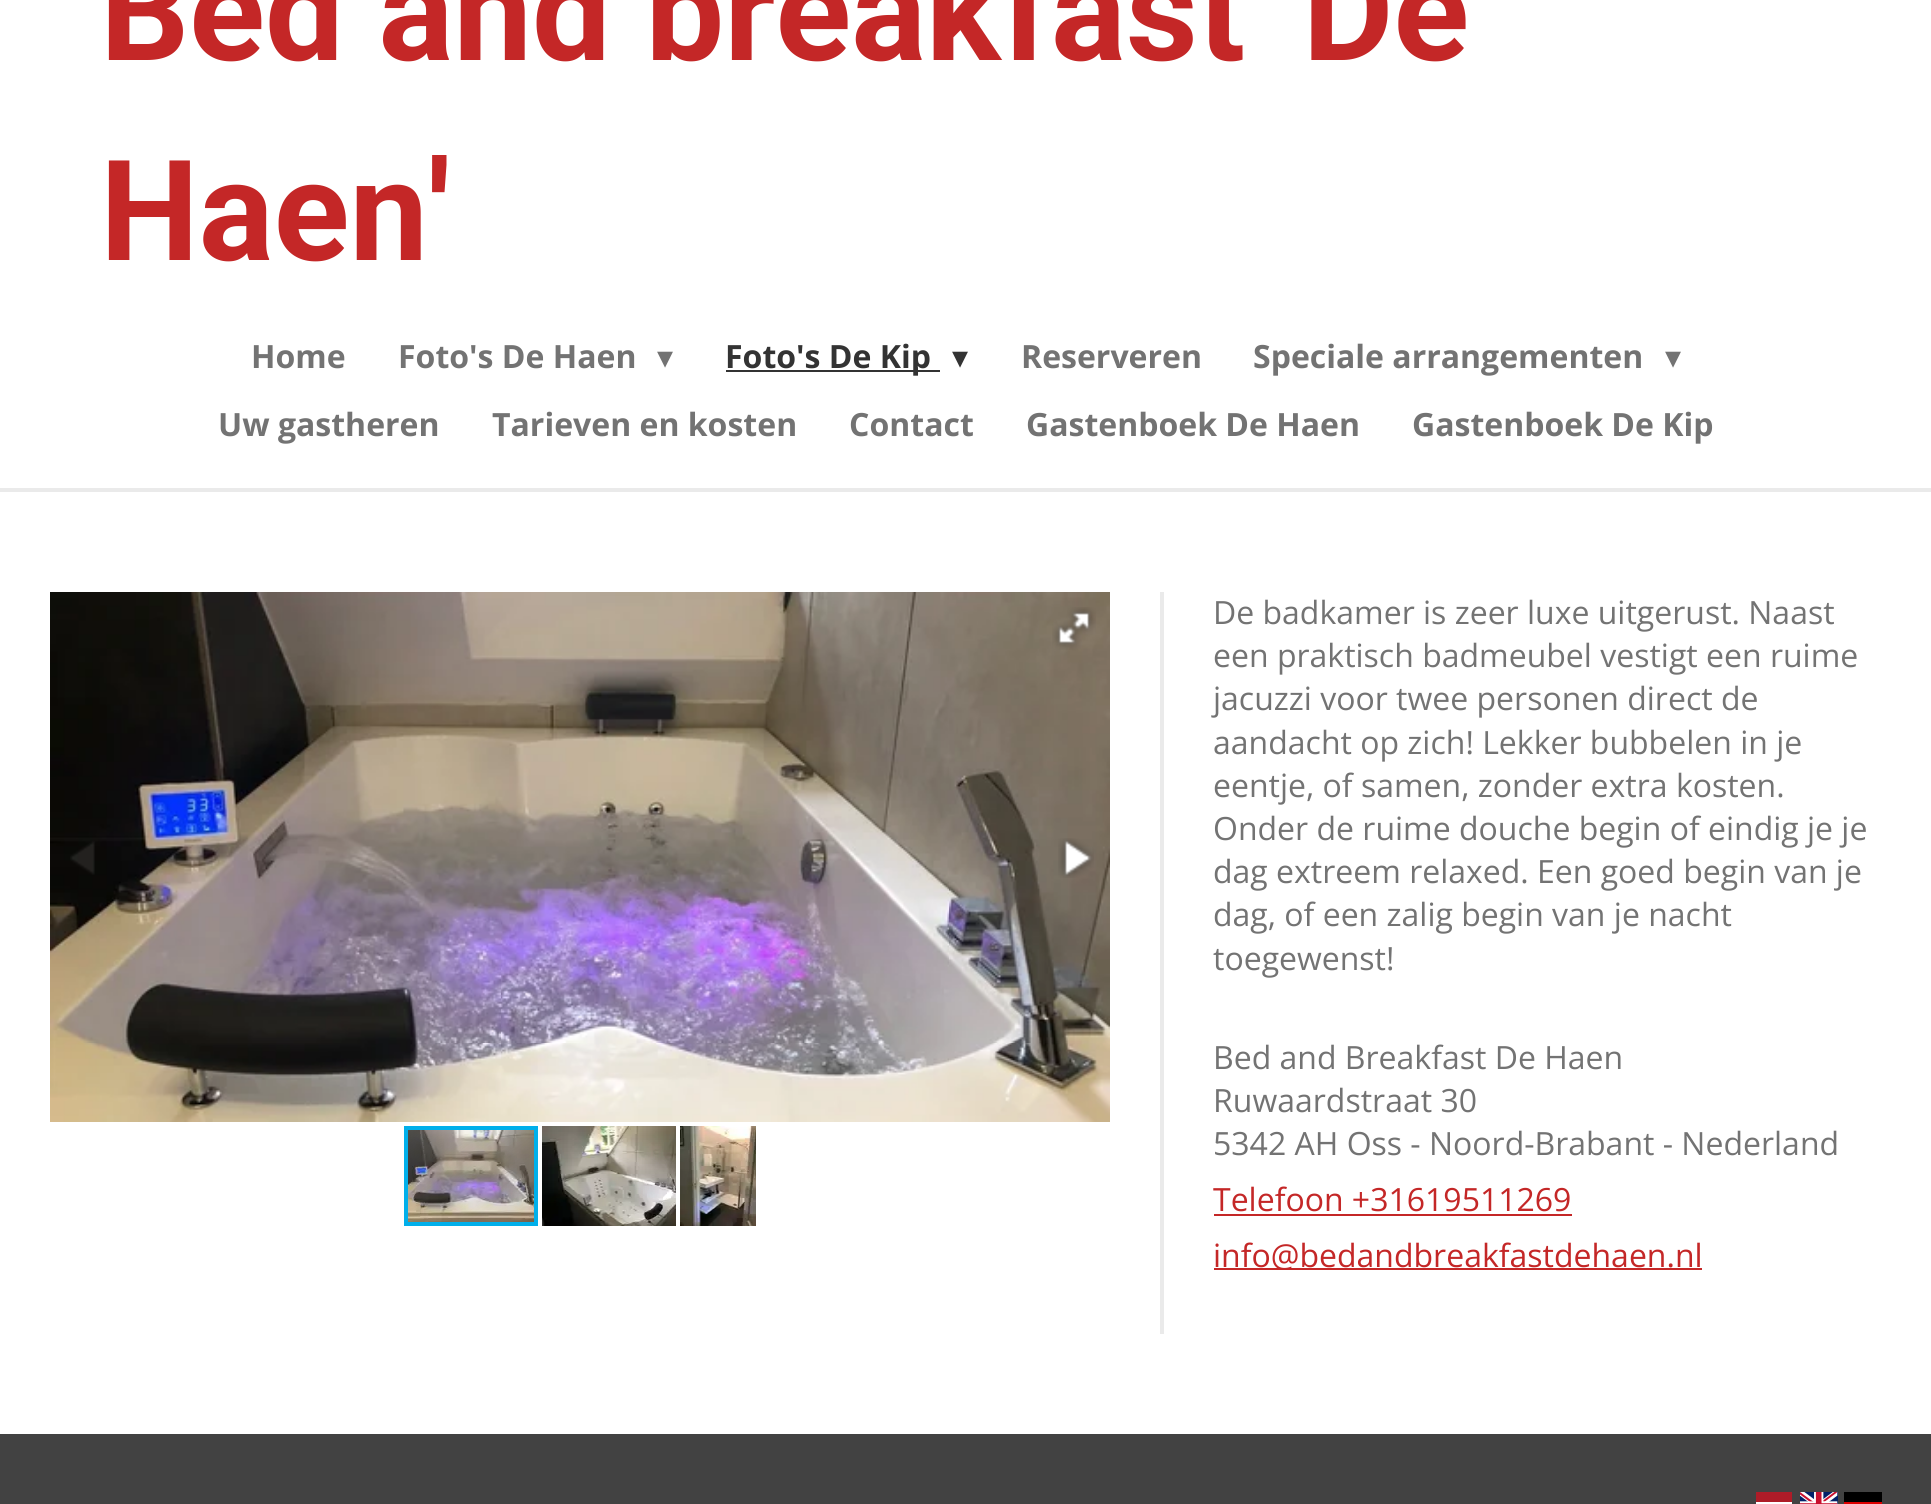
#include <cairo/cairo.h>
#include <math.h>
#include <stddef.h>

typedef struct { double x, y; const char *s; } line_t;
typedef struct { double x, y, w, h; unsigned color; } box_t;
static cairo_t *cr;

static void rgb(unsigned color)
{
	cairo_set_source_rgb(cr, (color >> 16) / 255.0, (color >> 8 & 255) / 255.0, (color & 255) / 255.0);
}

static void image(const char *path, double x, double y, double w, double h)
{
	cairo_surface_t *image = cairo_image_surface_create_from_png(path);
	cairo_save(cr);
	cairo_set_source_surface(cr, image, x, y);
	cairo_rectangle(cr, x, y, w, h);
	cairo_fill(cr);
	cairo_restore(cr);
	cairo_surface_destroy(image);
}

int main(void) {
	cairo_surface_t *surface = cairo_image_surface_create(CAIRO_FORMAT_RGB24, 1931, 1504);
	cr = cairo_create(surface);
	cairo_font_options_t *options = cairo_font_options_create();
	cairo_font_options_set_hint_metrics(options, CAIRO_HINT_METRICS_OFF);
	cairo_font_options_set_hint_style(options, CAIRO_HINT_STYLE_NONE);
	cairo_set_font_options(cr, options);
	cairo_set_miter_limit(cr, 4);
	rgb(0xffffff);
	cairo_paint(cr);
	rgb(0x333333);
	cairo_rectangle(cr, 726, 370, 214, 2);
	cairo_fill(cr);
	rgb(0xeaeaea);
	cairo_rectangle(cr, 0, 488, 1931, 4);
	cairo_fill(cr);
	image("img/1.png", 50, 592, 1060, 530);
	image("img/2.png", 1052, 607, 44, 43);
	image("img/3.png", 70, 841, 25, 34);
	image("img/4.png", 1058, 838, 36, 40);
	image("img/7.png", 408, 1130, 126, 92);
	cairo_rectangle(cr, 406, 1128, 130, 96);
	rgb(0x00afea);
	cairo_set_line_width(cr, 4);
	cairo_stroke(cr);
	image("img/5.png", 542, 1126, 134, 100);
	image("img/6.png", 680, 1126, 76, 100);
	{
		static const box_t items[] = {
			{1160, 592, 4, 742, 0xeaeaea},
			{1214, 1214, 358, 2, 0xc42727},
			{1214, 1268, 488, 2, 0xc42727},
			{0, 1434, 1931, 70, 0x424242},
			{1756, 1502, 36, 2, 0xffffff},
			{1756, 1492, 36, 10, 0xae1c28},
		};
		for (size_t i = 0; i < sizeof items / sizeof *items; i++) {
			rgb(items[i].color);
			cairo_rectangle(cr, items[i].x, items[i].y, items[i].w, items[i].h);
			cairo_fill(cr);
		}
	}
	image("img/8.png", 1800, 1492, 38, 12);
	rgb(0x000000);
	cairo_rectangle(cr, 1844, 1492, 38, 10);
	cairo_fill(cr);
	rgb(0xdd0000);
	cairo_rectangle(cr, 1844, 1502, 38, 2);
	cairo_fill(cr);
	cairo_select_font_face(cr, "Roboto", CAIRO_FONT_SLANT_NORMAL, CAIRO_FONT_WEIGHT_BOLD);
	cairo_set_font_size(cr, 140);
	rgb(0xc42727);
	cairo_move_to(cr, 100, 60);
	cairo_show_text(cr, "Bed and breakfast 'De");
	cairo_move_to(cr, 100, 260);
	cairo_show_text(cr, "Haen'");
	cairo_select_font_face(cr, "Open Sans", CAIRO_FONT_SLANT_NORMAL, CAIRO_FONT_WEIGHT_BOLD);
	cairo_set_font_size(cr, 32);
	rgb(0x737373);
	cairo_move_to(cr, 251, 368);
	cairo_show_text(cr, "Home");
	cairo_move_to(cr, 398, 368);
	cairo_show_text(cr, "Foto's De Haen");
	cairo_select_font_face(cr, "DejaVu Sans", CAIRO_FONT_SLANT_NORMAL, CAIRO_FONT_WEIGHT_NORMAL);
	cairo_move_to(cr, 657, 368);
	cairo_show_text(cr, "▾");
	cairo_select_font_face(cr, "Open Sans", CAIRO_FONT_SLANT_NORMAL, CAIRO_FONT_WEIGHT_BOLD);
	rgb(0x333333);
	cairo_move_to(cr, 725, 368);
	cairo_show_text(cr, "Foto's De Kip");
	cairo_select_font_face(cr, "DejaVu Sans", CAIRO_FONT_SLANT_NORMAL, CAIRO_FONT_WEIGHT_NORMAL);
	cairo_move_to(cr, 952, 368);
	cairo_show_text(cr, "▾");
	cairo_select_font_face(cr, "Open Sans", CAIRO_FONT_SLANT_NORMAL, CAIRO_FONT_WEIGHT_BOLD);
	rgb(0x737373);
	cairo_move_to(cr, 1021, 368);
	cairo_show_text(cr, "Reserveren");
	cairo_move_to(cr, 1253, 368);
	cairo_show_text(cr, "Speciale arrangementen");
	cairo_select_font_face(cr, "DejaVu Sans", CAIRO_FONT_SLANT_NORMAL, CAIRO_FONT_WEIGHT_NORMAL);
	cairo_move_to(cr, 1665, 368);
	cairo_show_text(cr, "▾");
	cairo_select_font_face(cr, "Open Sans", CAIRO_FONT_SLANT_NORMAL, CAIRO_FONT_WEIGHT_BOLD);
	{
		static const line_t items[] = {
			{218, 436, "Uw gastheren"},
			{492, 436, "Tarieven en kosten"},
			{849, 436, "Contact"},
			{1026, 436, "Gastenboek De Haen"},
			{1412, 436, "Gastenboek De Kip"},
		};
		for (size_t i = 0; i < sizeof items / sizeof *items; i++) {
			cairo_move_to(cr, items[i].x, items[i].y);
			cairo_show_text(cr, items[i].s);
		}
	}
	cairo_select_font_face(cr, "Open Sans", CAIRO_FONT_SLANT_NORMAL, CAIRO_FONT_WEIGHT_NORMAL);
	{
		static const line_t items[] = {
			{1213, 624, "De badkamer is zeer luxe uitgerust. Naast"},
			{1213, 667, "een praktisch badmeubel vestigt een ruime"},
			{1213, 710, "jacuzzi voor twee personen direct de"},
			{1213, 754, "aandacht op zich! Lekker bubbelen in je"},
			{1213, 797, "eentje, of samen, zonder extra kosten."},
			{1213, 840, "Onder de ruime douche begin of eindig je je"},
			{1213, 883, "dag extreem relaxed. Een goed begin van je"},
			{1213, 926, "dag, of een zalig begin van je nacht"},
			{1213, 970, "toegewenst!"},
			{1213, 1069, "Bed and Breakfast De Haen"},
			{1213, 1112, "Ruwaardstraat 30"},
			{1213, 1155, "5342 AH Oss - Noord-Brabant - Nederland"},
		};
		for (size_t i = 0; i < sizeof items / sizeof *items; i++) {
			cairo_move_to(cr, items[i].x, items[i].y);
			cairo_show_text(cr, items[i].s);
		}
	}
	rgb(0xc42727);
	cairo_move_to(cr, 1213, 1211);
	cairo_show_text(cr, "Telefoon +31619511269");
	cairo_move_to(cr, 1213, 1267);
	cairo_show_text(cr, "info@bedandbreakfastdehaen.nl");
	cairo_surface_write_to_png(surface, "page.png");
	cairo_font_options_destroy(options);
	cairo_destroy(cr);
	cairo_surface_destroy(surface);
	return 0;
}
